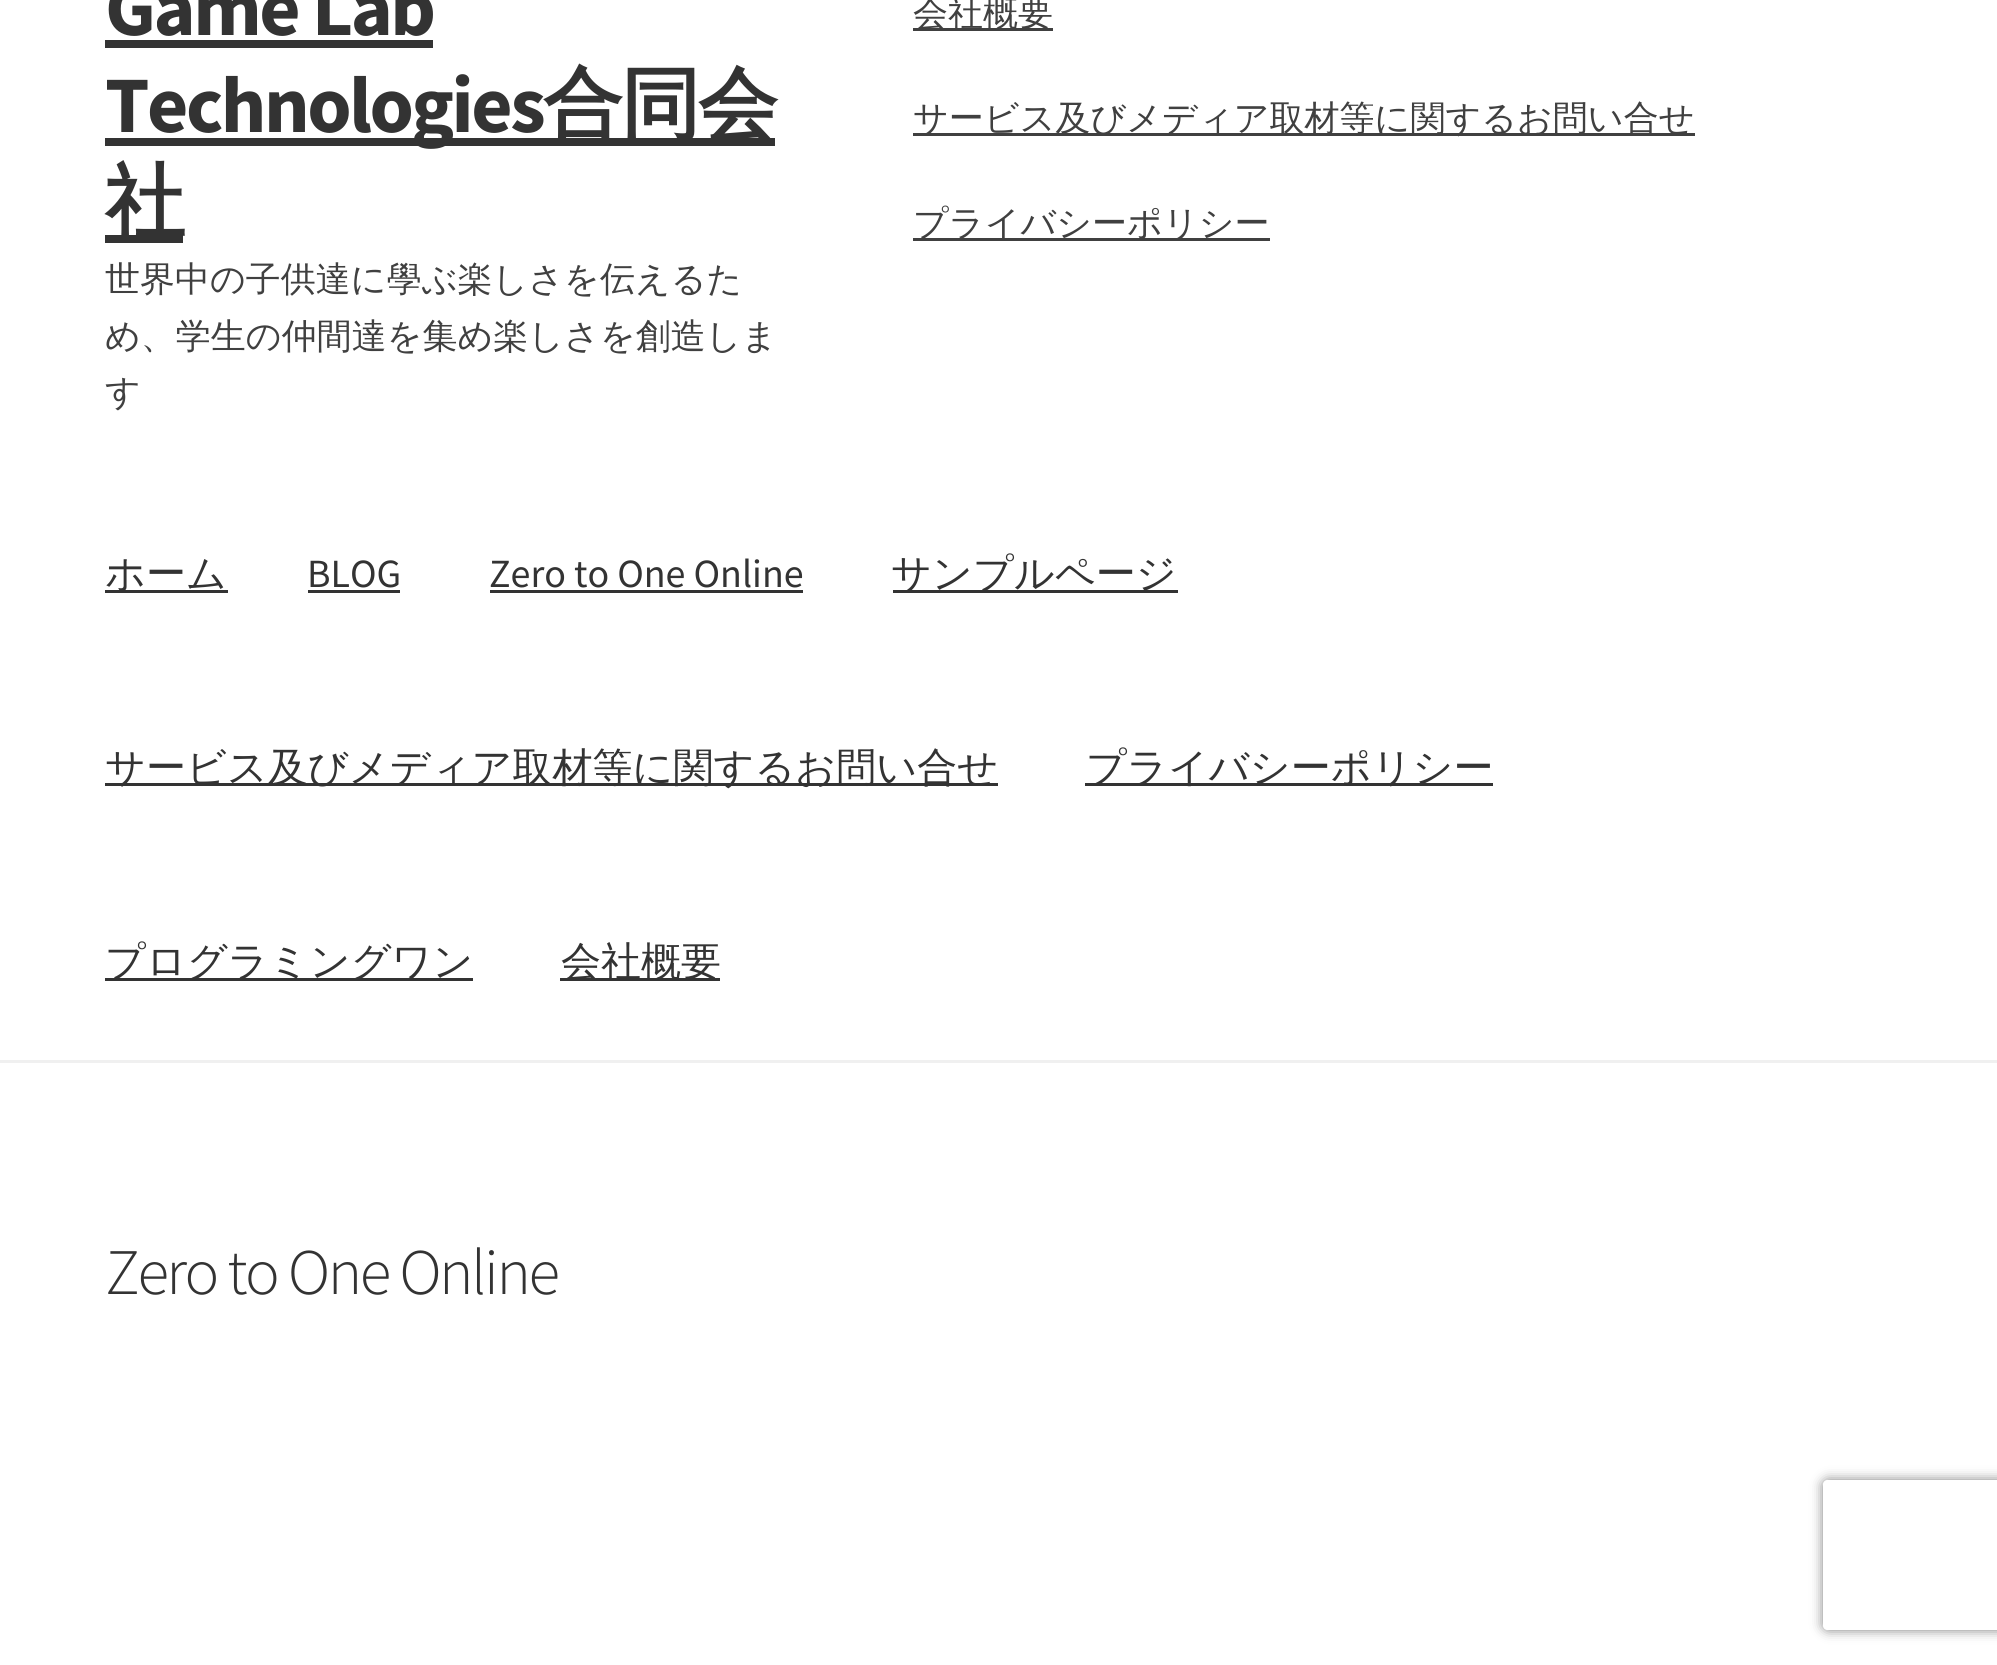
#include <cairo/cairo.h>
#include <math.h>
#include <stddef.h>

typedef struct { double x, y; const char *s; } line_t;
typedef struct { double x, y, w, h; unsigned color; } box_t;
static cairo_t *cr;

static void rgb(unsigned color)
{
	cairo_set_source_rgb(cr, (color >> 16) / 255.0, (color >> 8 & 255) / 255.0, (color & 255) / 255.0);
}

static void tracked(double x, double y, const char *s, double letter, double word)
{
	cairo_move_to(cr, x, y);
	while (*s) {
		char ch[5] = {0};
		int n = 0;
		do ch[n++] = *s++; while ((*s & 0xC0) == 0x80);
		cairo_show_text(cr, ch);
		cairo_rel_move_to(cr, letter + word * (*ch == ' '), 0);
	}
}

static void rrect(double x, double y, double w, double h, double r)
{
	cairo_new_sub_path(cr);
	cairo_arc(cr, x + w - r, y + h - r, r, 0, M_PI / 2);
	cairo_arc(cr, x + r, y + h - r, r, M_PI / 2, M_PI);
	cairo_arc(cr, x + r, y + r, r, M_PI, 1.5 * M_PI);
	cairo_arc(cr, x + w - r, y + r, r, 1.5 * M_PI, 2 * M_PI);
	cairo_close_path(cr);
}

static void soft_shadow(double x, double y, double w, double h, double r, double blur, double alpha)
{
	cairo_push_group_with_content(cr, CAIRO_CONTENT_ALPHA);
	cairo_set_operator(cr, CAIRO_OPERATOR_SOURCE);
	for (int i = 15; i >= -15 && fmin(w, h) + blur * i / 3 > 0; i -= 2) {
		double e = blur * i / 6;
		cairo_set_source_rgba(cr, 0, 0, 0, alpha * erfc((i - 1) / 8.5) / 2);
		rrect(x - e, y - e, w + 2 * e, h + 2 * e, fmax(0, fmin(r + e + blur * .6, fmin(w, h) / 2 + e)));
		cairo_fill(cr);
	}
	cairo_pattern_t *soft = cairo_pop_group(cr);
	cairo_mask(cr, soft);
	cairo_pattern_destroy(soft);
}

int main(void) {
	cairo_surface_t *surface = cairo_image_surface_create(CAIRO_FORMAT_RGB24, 1997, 1665);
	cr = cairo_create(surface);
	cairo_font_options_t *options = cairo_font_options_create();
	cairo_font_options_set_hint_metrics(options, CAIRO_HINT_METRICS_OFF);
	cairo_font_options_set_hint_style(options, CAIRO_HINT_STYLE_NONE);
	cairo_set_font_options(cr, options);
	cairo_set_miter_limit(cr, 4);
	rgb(0xffffff);
	cairo_paint(cr);
	{
		static const box_t items[] = {
			{0, 1060, 1997, 3, 0xf0f0f0},
			{105, 40, 328, 8, 0x333333},
			{105, 138, 670, 8, 0x333333},
			{105, 235, 78, 8, 0x333333},
			{913, 28, 140, 3, 0x404040},
			{913, 133, 782, 3, 0x404040},
			{913, 238, 357, 3, 0x404040},
			{105, 590, 123, 3, 0x333333},
			{308, 590, 92, 3, 0x333333},
			{490, 590, 313, 3, 0x333333},
			{893, 590, 285, 3, 0x333333},
			{105, 783, 893, 3, 0x333333},
			{1085, 783, 408, 3, 0x333333},
			{105, 978, 368, 3, 0x333333},
			{560, 978, 160, 3, 0x333333},
		};
		for (size_t i = 0; i < sizeof items / sizeof *items; i++) {
			rgb(items[i].color);
			cairo_rectangle(cr, items[i].x, items[i].y, items[i].w, items[i].h);
			cairo_fill(cr);
		}
	}
	cairo_save(cr);
	cairo_set_fill_rule(cr, CAIRO_FILL_RULE_EVEN_ODD);
	cairo_new_path(cr);
	cairo_move_to(cr, 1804, 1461);
	cairo_line_to(cr, 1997, 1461);
	cairo_line_to(cr, 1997, 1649);
	cairo_line_to(cr, 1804, 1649);
	cairo_close_path(cr);
	cairo_move_to(cr, 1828, 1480);
	cairo_line_to(cr, 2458, 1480);
	cairo_curve_to(cr, 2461, 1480, 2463, 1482, 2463, 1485);
	cairo_line_to(cr, 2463, 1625);
	cairo_curve_to(cr, 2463, 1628, 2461, 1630, 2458, 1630);
	cairo_line_to(cr, 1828, 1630);
	cairo_curve_to(cr, 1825, 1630, 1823, 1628, 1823, 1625);
	cairo_line_to(cr, 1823, 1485);
	cairo_curve_to(cr, 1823, 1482, 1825, 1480, 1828, 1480);
	cairo_close_path(cr);
	cairo_clip(cr);
	rgb(0x808080);
	soft_shadow(1823, 1480, 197, 150, 5, 6, 1);
	cairo_restore(cr);
	cairo_select_font_face(cr, "Source Sans Pro", CAIRO_FONT_SLANT_NORMAL, CAIRO_FONT_WEIGHT_BOLD);
	cairo_set_font_size(cr, 80);
	tracked(105, 35, "Game Lab", -2.5, 0);
	tracked(105, 132, "Technologies", -2.5, 0);
	cairo_select_font_face(cr, "WenQuanYi Zen Hei", CAIRO_FONT_SLANT_NORMAL, CAIRO_FONT_WEIGHT_BOLD);
	tracked(543, 132, "合同会", -2.5, 0);
	tracked(105, 229, "社", -2.5, 0);
	cairo_select_font_face(cr, "WenQuanYi Zen Hei Medium", CAIRO_FONT_SLANT_NORMAL, CAIRO_FONT_WEIGHT_NORMAL);
	cairo_set_font_size(cr, 35);
	rgb(0x404040);
	{
		static const line_t items[] = {
			{105, 291, "世界中の子供達に學ぶ楽しさを伝えるた"},
			{105, 348, "め、学生の仲間達を集め楽しさを創造しま"},
			{105, 404, "す"},
			{913, 25, "会社概要"},
			{913, 130, "サービス及びメディア取材等に関するお問い合せ"},
			{913, 235, "プライバシーポリシー"},
		};
		for (size_t i = 0; i < sizeof items / sizeof *items; i++) {
			cairo_move_to(cr, items[i].x, items[i].y);
			cairo_show_text(cr, items[i].s);
		}
	}
	cairo_set_font_size(cr, 40);
	rgb(0x333333);
	cairo_move_to(cr, 105, 587);
	cairo_show_text(cr, "ホーム");
	cairo_select_font_face(cr, "Source Sans Pro", CAIRO_FONT_SLANT_NORMAL, CAIRO_FONT_WEIGHT_NORMAL);
	cairo_move_to(cr, 307, 587);
	cairo_show_text(cr, "BLOG");
	cairo_move_to(cr, 489, 587);
	cairo_show_text(cr, "Zero to One Online");
	cairo_select_font_face(cr, "WenQuanYi Zen Hei Medium", CAIRO_FONT_SLANT_NORMAL, CAIRO_FONT_WEIGHT_NORMAL);
	{
		static const line_t items[] = {
			{891, 587, "サンプルページ"},
			{105, 781, "サービス及びメディア取材等に関するお問い合せ"},
			{1086, 781, "プライバシーポリシー"},
			{105, 975, "プログラミングワン"},
			{561, 975, "会社概要"},
		};
		for (size_t i = 0; i < sizeof items / sizeof *items; i++) {
			cairo_move_to(cr, items[i].x, items[i].y);
			cairo_show_text(cr, items[i].s);
		}
	}
	cairo_select_font_face(cr, "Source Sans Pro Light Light", CAIRO_FONT_SLANT_NORMAL, CAIRO_FONT_WEIGHT_NORMAL);
	cairo_set_font_size(cr, 65);
	tracked(105, 1294, "Zero to One Online", -2.5, 0);
	cairo_surface_write_to_png(surface, "page.png");
	cairo_font_options_destroy(options);
	cairo_destroy(cr);
	cairo_surface_destroy(surface);
	return 0;
}
